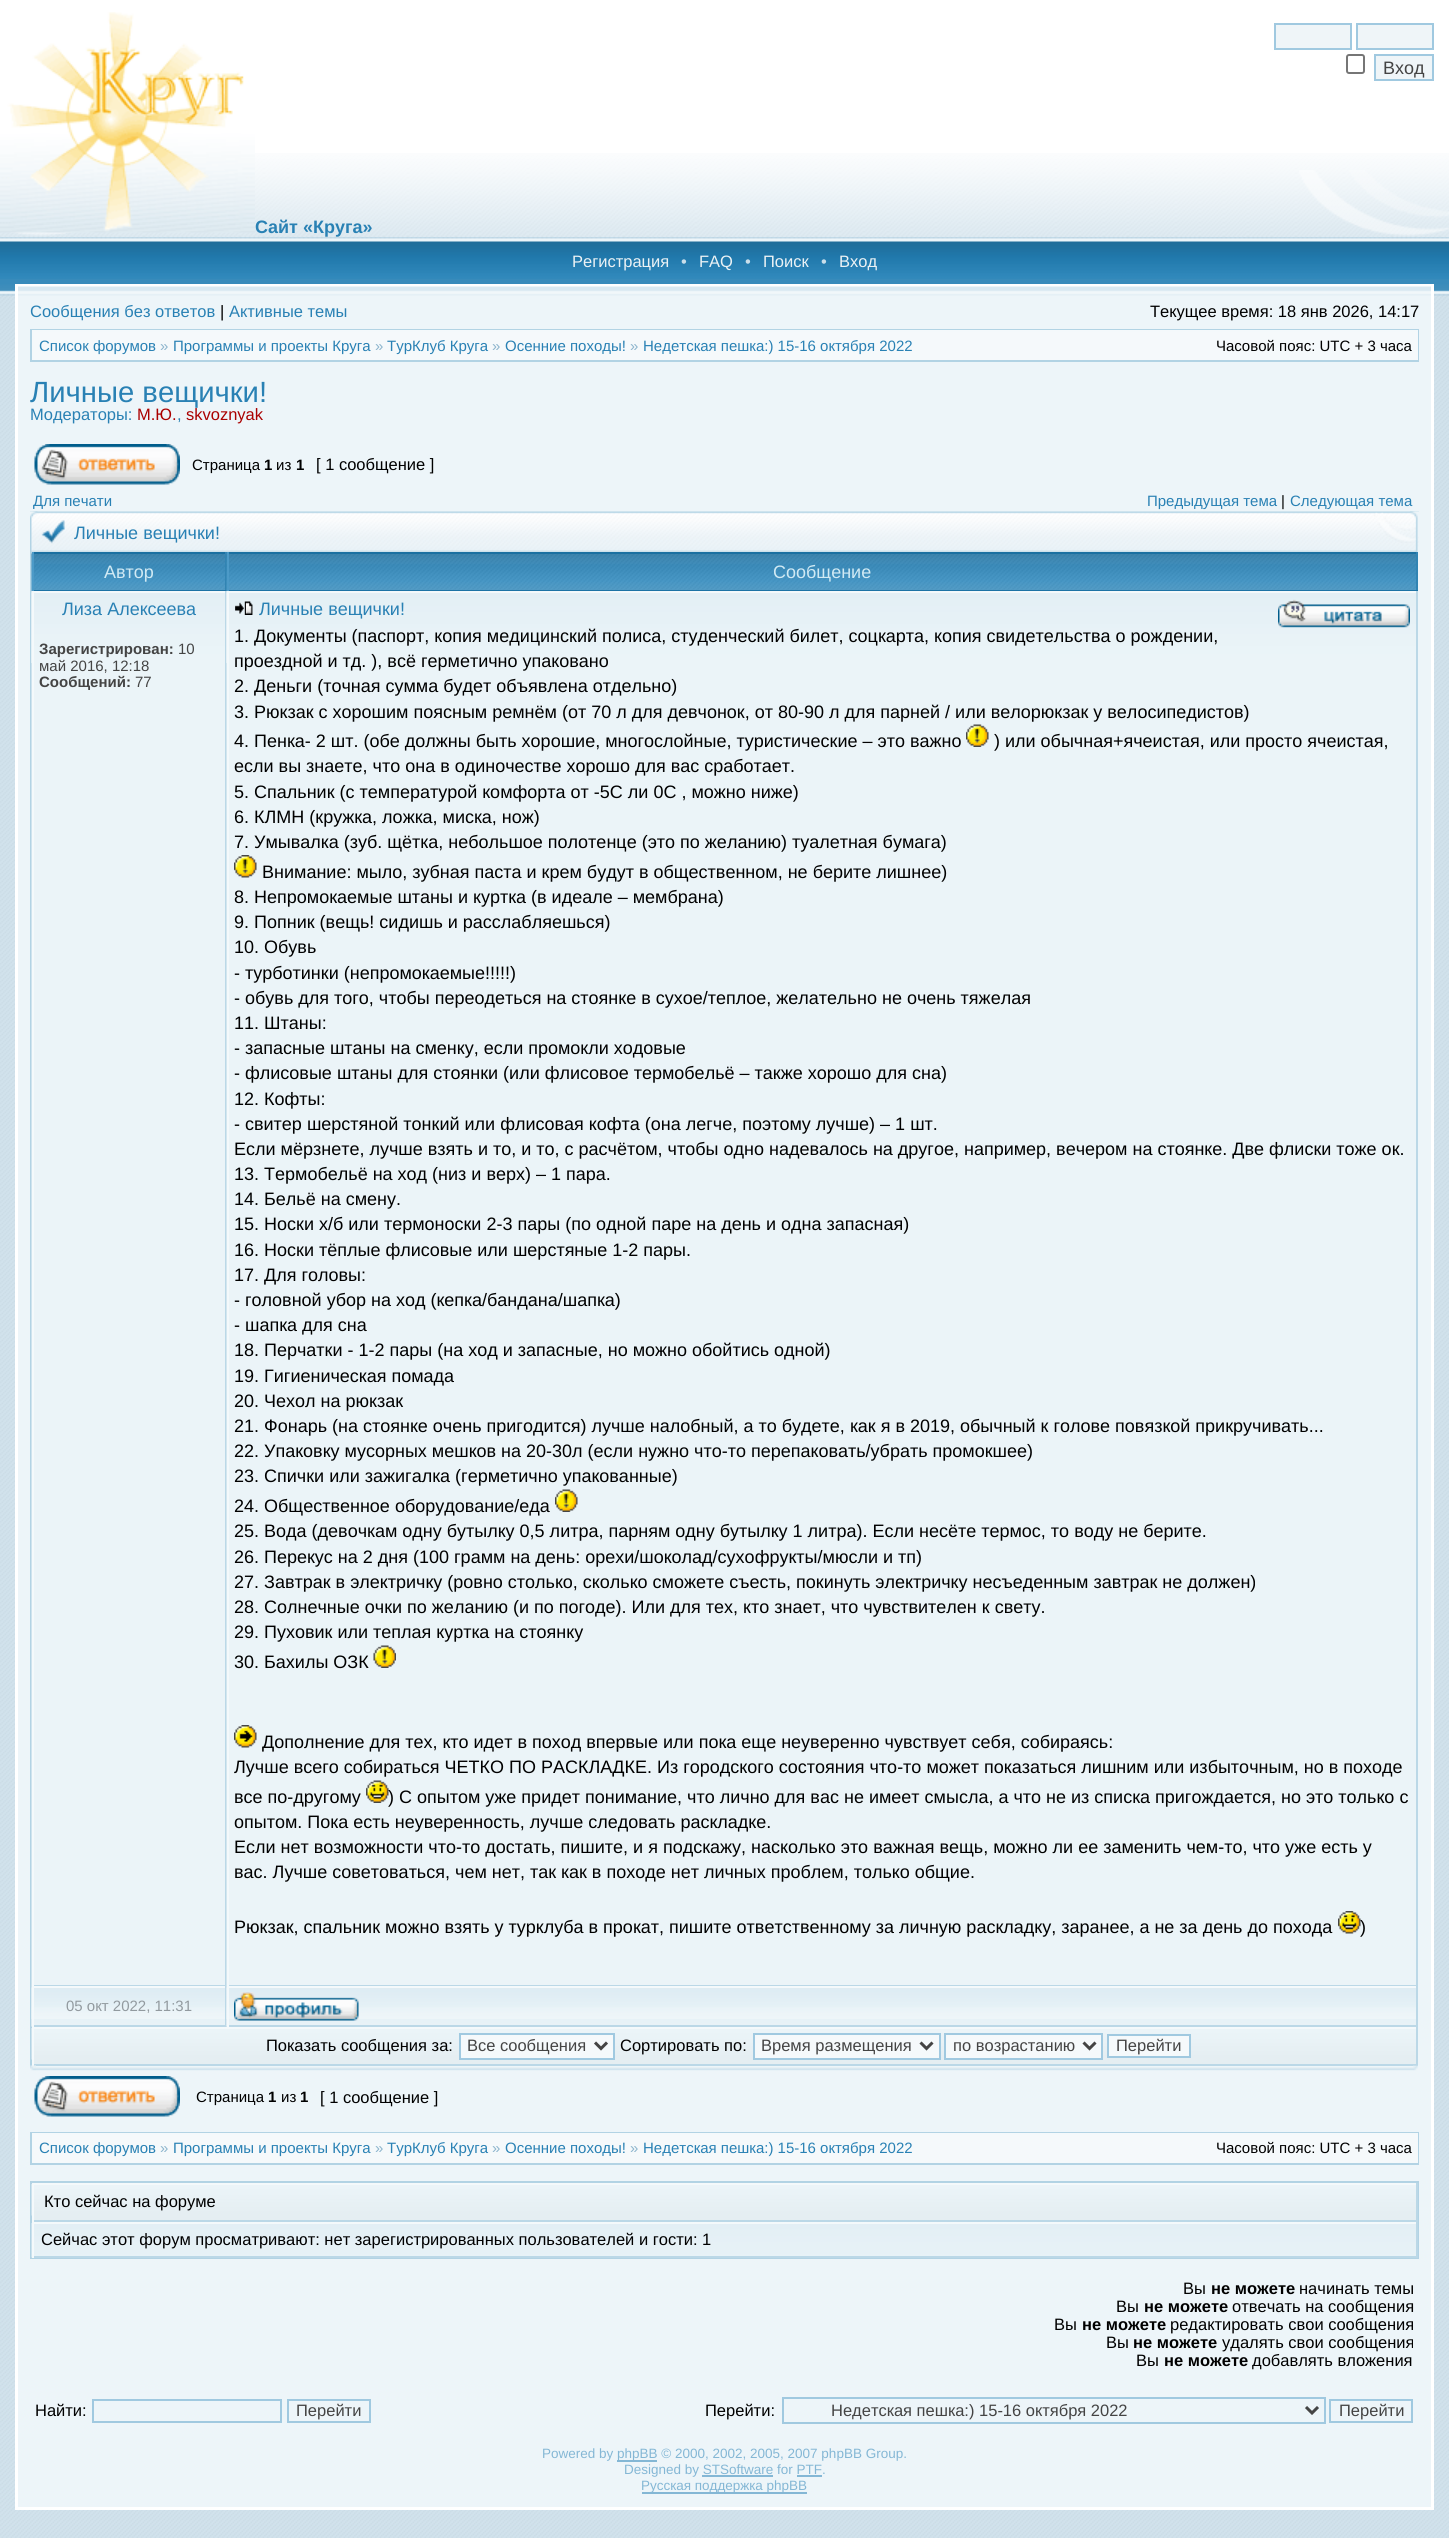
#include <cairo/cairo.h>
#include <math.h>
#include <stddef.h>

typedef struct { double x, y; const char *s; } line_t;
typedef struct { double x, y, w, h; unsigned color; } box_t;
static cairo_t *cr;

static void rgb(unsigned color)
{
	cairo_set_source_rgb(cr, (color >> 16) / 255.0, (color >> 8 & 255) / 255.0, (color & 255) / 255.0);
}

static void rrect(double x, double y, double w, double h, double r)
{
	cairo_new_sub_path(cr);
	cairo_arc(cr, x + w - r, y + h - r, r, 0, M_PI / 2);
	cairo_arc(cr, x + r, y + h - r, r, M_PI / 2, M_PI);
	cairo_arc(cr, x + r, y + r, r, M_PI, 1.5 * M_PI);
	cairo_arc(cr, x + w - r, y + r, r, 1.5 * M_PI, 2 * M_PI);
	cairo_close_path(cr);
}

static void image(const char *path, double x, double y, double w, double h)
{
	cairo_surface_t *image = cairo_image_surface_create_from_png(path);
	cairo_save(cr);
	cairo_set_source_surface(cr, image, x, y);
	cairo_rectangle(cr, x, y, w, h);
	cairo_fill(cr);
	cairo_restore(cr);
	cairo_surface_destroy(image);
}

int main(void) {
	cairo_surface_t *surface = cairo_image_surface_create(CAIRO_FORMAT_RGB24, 1449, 2538);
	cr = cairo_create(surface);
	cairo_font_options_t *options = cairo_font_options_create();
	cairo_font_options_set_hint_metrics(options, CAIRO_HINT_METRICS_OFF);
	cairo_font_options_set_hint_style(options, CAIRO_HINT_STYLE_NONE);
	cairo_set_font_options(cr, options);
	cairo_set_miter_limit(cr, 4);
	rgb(0xffffff);
	cairo_paint(cr);
	image("img/1.png", 0, 295, 1449, 2243);
	image("img/2.png", 0, 153, 1449, 84);
	image("img/3.png", 7, 232, 69, 4);
	image("img/4.png", 1299, 170, 150, 66);
	image("img/5.png", 0, 12, 255, 221);
	rgb(0xeff5f8);
	cairo_rectangle(cr, 1275, 24, 76, 25);
	cairo_fill_preserve(cr);
	rgb(0xa0c9e0);
	cairo_stroke(cr);
	rgb(0xeff5f8);
	cairo_rectangle(cr, 1357, 24, 76, 25);
	cairo_fill_preserve(cr);
	rgb(0xa0c9e0);
	cairo_stroke(cr);
	rrect(1347, 55, 17, 18, 2);
	rgb(0x767676);
	cairo_stroke(cr);
	rgb(0xeff5f8);
	cairo_rectangle(cr, 1375, 55, 58, 25);
	cairo_fill_preserve(cr);
	rgb(0xa0c9e0);
	cairo_stroke(cr);
	rgb(0x388bbb);
	cairo_rectangle(cr, 0, 279, 1449, 5);
	cairo_fill(cr);
	image("img/6.png", 0, 237, 1449, 42);
	image("img/7.png", 0, 284, 1449, 12);
	cairo_rectangle(cr, 16.5, 285.5, 1416, 2223);
	rgb(0xffffff);
	cairo_set_line_width(cr, 3);
	cairo_stroke(cr);
	rgb(0xedf5f9);
	cairo_rectangle(cr, 18, 295, 1413, 2212);
	cairo_fill(cr);
	image("img/8.png", 18, 286, 1413, 10);
	cairo_rectangle(cr, 31, 330, 1387, 31);
	rgb(0xb2d3e4);
	cairo_set_line_width(cr, 2);
	cairo_stroke(cr);
	{
		static const box_t items[] = {
			{34, 332, 1384, 28, 0xf5f9fb},
			{32, 330, 1386, 2, 0xf4f9fb},
			{32, 330, 2, 30, 0xf4f9fb},
		};
		for (size_t i = 0; i < sizeof items / sizeof *items; i++) {
			rgb(items[i].color);
			cairo_rectangle(cr, items[i].x, items[i].y, items[i].w, items[i].h);
			cairo_fill(cr);
		}
	}
	image("img/9.png", 34, 444, 146, 41);
	image("img/10.png", 36, 2067, 1377, 4);
	image("img/11.png", 30, 511, 1389, 41);
	image("img/12.png", 30, 511, 35, 41);
	image("img/13.png", 1374, 511, 45, 41);
	rgb(0xb2d3e4);
	cairo_rectangle(cr, 30, 552, 2, 1514);
	cairo_fill(cr);
	image("img/14.png", 31, 553, 194, 38);
	{
		static const box_t items[] = {
			{32, 552, 195, 2, 0x1b70a1},
			{225, 552, 2, 39, 0x3184b3},
			{32, 590, 195, 1, 0x1d73a5},
			{32, 552, 2, 39, 0x4c9ac7},
		};
		for (size_t i = 0; i < sizeof items / sizeof *items; i++) {
			rgb(items[i].color);
			cairo_rectangle(cr, items[i].x, items[i].y, items[i].w, items[i].h);
			cairo_fill(cr);
		}
	}
	image("img/15.png", 226, 553, 1190, 38);
	{
		static const box_t items[] = {
			{227, 552, 1191, 2, 0x1b70a1},
			{1416, 552, 2, 39, 0x3184b3},
			{227, 590, 1191, 1, 0x1d73a5},
			{227, 552, 2, 39, 0x4c9ac7},
		};
		for (size_t i = 0; i < sizeof items / sizeof *items; i++) {
			rgb(items[i].color);
			cairo_rectangle(cr, items[i].x, items[i].y, items[i].w, items[i].h);
			cairo_fill(cr);
		}
	}
	image("img/16.png", 31, 591, 194, 1395);
	{
		static const box_t items[] = {
			{32, 591, 195, 2, 0xf4f9fb},
			{225, 591, 2, 1395, 0xbbd8e7},
			{32, 1985, 195, 1, 0xbbd8e7},
			{32, 591, 2, 1395, 0xf4f9fb},
		};
		for (size_t i = 0; i < sizeof items / sizeof *items; i++) {
			rgb(items[i].color);
			cairo_rectangle(cr, items[i].x, items[i].y, items[i].w, items[i].h);
			cairo_fill(cr);
		}
	}
	image("img/17.png", 226, 591, 1190, 1395);
	{
		static const box_t items[] = {
			{227, 591, 1191, 2, 0xf4f9fb},
			{1416, 591, 2, 1395, 0xbbd8e7},
			{227, 1985, 1191, 1, 0xbbd8e7},
			{227, 591, 2, 1395, 0xf4f9fb},
		};
		for (size_t i = 0; i < sizeof items / sizeof *items; i++) {
			rgb(items[i].color);
			cairo_rectangle(cr, items[i].x, items[i].y, items[i].w, items[i].h);
			cairo_fill(cr);
		}
	}
	image("img/18.png", 235, 601, 18, 14);
	image("img/19.png", 1278, 599, 132, 29);
	image("img/20.png", 966, 724, 23, 23);
	image("img/21.png", 234, 855, 23, 23);
	image("img/20.png", 555, 1489, 23, 23);
	image("img/22.png", 373, 1645, 23, 23);
	image("img/23.png", 234, 1725, 23, 23);
	image("img/24.png", 366, 1780, 23, 23);
	image("img/25.png", 1338, 1911, 23, 23);
	image("img/26.png", 31, 1986, 194, 41);
	{
		static const box_t items[] = {
			{32, 1986, 195, 2, 0xf4f9fb},
			{225, 1986, 2, 41, 0xbbd8e7},
			{32, 2025, 195, 2, 0xbbd8e7},
			{32, 1986, 2, 41, 0xf4f9fb},
		};
		for (size_t i = 0; i < sizeof items / sizeof *items; i++) {
			rgb(items[i].color);
			cairo_rectangle(cr, items[i].x, items[i].y, items[i].w, items[i].h);
			cairo_fill(cr);
		}
	}
	image("img/27.png", 226, 1986, 1190, 41);
	{
		static const box_t items[] = {
			{227, 1986, 1191, 2, 0xf4f9fb},
			{1416, 1986, 2, 41, 0xbbd8e7},
			{227, 2025, 1191, 2, 0xbbd8e7},
			{227, 1986, 2, 41, 0xf4f9fb},
		};
		for (size_t i = 0; i < sizeof items / sizeof *items; i++) {
			rgb(items[i].color);
			cairo_rectangle(cr, items[i].x, items[i].y, items[i].w, items[i].h);
			cairo_fill(cr);
		}
	}
	image("img/28.png", 234, 1992, 125, 29);
	rgb(0xe5eef2);
	cairo_rectangle(cr, 34, 2059, 1382, 5);
	cairo_fill(cr);
	image("img/29.png", 31, 2028, 1385, 32);
	{
		static const box_t items[] = {
			{32, 2027, 1386, 2, 0xf4f9fb},
			{1416, 2027, 2, 39, 0xbbd8e7},
			{32, 2064, 1386, 2, 0xbbd8e7},
			{32, 2027, 2, 39, 0xf4f9fb},
		};
		for (size_t i = 0; i < sizeof items / sizeof *items; i++) {
			rgb(items[i].color);
			cairo_rectangle(cr, items[i].x, items[i].y, items[i].w, items[i].h);
			cairo_fill(cr);
		}
	}
	rgb(0xf5f9fb);
	cairo_rectangle(cr, 460, 2034, 154, 25);
	cairo_fill_preserve(cr);
	rgb(0xa0c9e0);
	cairo_stroke(cr);
	cairo_new_path(cr);
	cairo_move_to(cr, 595, 2042.5);
	cairo_line_to(cr, 601, 2048.5);
	cairo_line_to(cr, 607, 2042.5);
	rgb(0x444444);
	cairo_set_line_width(cr, 3);
	cairo_stroke(cr);
	rgb(0xf5f9fb);
	cairo_rectangle(cr, 754, 2034, 186, 25);
	cairo_fill_preserve(cr);
	rgb(0xa0c9e0);
	cairo_set_line_width(cr, 2);
	cairo_stroke(cr);
	cairo_new_path(cr);
	cairo_move_to(cr, 920.5, 2042.5);
	cairo_line_to(cr, 926.5, 2048.5);
	cairo_line_to(cr, 932.5, 2042.5);
	rgb(0x444444);
	cairo_set_line_width(cr, 3);
	cairo_stroke(cr);
	rgb(0xf5f9fb);
	cairo_rectangle(cr, 945, 2034, 157, 25);
	cairo_fill_preserve(cr);
	rgb(0xa0c9e0);
	cairo_set_line_width(cr, 2);
	cairo_stroke(cr);
	cairo_new_path(cr);
	cairo_move_to(cr, 1083.5, 2042.5);
	cairo_line_to(cr, 1089.5, 2048.5);
	cairo_line_to(cr, 1095.5, 2042.5);
	rgb(0x444444);
	cairo_set_line_width(cr, 3);
	cairo_stroke(cr);
	rgb(0xf5f9fb);
	cairo_rectangle(cr, 1108, 2035, 82, 22);
	cairo_fill_preserve(cr);
	rgb(0xa0c9e0);
	cairo_set_line_width(cr, 2);
	cairo_stroke(cr);
	image("img/30.png", 30, 2065, 6, 6);
	image("img/31.png", 1413, 2065, 6, 6);
	image("img/9.png", 34, 2076, 146, 41);
	cairo_rectangle(cr, 31, 2133, 1387, 31);
	rgb(0xb2d3e4);
	cairo_stroke(cr);
	{
		static const box_t items[] = {
			{34, 2135, 1384, 28, 0xf5f9fb},
			{32, 2133, 1386, 2, 0xf4f9fb},
			{32, 2133, 2, 30, 0xf4f9fb},
		};
		for (size_t i = 0; i < sizeof items / sizeof *items; i++) {
			rgb(items[i].color);
			cairo_rectangle(cr, items[i].x, items[i].y, items[i].w, items[i].h);
			cairo_fill(cr);
		}
	}
	cairo_rectangle(cr, 31, 2182, 1387, 76);
	rgb(0xb2d3e4);
	cairo_stroke(cr);
	rgb(0xe5eef2);
	cairo_rectangle(cr, 34, 2215, 1382, 5);
	cairo_fill(cr);
	image("img/29.png", 31, 2184, 1385, 32);
	{
		static const box_t items[] = {
			{32, 2183, 1386, 2, 0xf4f9fb},
			{1416, 2183, 2, 39, 0xbbd8e7},
			{32, 2220, 1386, 2, 0xbbd8e7},
			{32, 2183, 2, 39, 0xf4f9fb},
		};
		for (size_t i = 0; i < sizeof items / sizeof *items; i++) {
			rgb(items[i].color);
			cairo_rectangle(cr, items[i].x, items[i].y, items[i].w, items[i].h);
			cairo_fill(cr);
		}
	}
	image("img/32.png", 31, 2223, 1385, 35);
	{
		static const box_t items[] = {
			{32, 2222, 1386, 2, 0xf4f9fb},
			{1416, 2222, 2, 36, 0xbbd8e7},
			{32, 2256, 1386, 2, 0xbbd8e7},
			{32, 2222, 2, 36, 0xf4f9fb},
		};
		for (size_t i = 0; i < sizeof items / sizeof *items; i++) {
			rgb(items[i].color);
			cairo_rectangle(cr, items[i].x, items[i].y, items[i].w, items[i].h);
			cairo_fill(cr);
		}
	}
	cairo_rectangle(cr, 93, 2400, 188, 22);
	rgb(0xa0c9e0);
	cairo_stroke(cr);
	cairo_rectangle(cr, 288, 2400, 82, 22);
	cairo_stroke(cr);
	cairo_rectangle(cr, 783, 2398, 542, 25);
	cairo_stroke(cr);
	cairo_new_path(cr);
	cairo_move_to(cr, 1306, 2407);
	cairo_line_to(cr, 1312, 2413);
	cairo_line_to(cr, 1318, 2407);
	rgb(0x444444);
	cairo_set_line_width(cr, 3);
	cairo_stroke(cr);
	cairo_rectangle(cr, 1330, 2400, 82, 22);
	rgb(0xa0c9e0);
	cairo_set_line_width(cr, 2);
	cairo_stroke(cr);
	{
		static const box_t items[] = {
			{617, 2460, 40, 2, 0x84b7d5},
			{702, 2475, 71, 2, 0x84b7d5},
			{797, 2475, 25, 2, 0x84b7d5},
			{642, 2492, 165, 2, 0x84b7d5},
		};
		for (size_t i = 0; i < sizeof items / sizeof *items; i++) {
			rgb(items[i].color);
			cairo_rectangle(cr, items[i].x, items[i].y, items[i].w, items[i].h);
			cairo_fill(cr);
		}
	}
	cairo_select_font_face(cr, "Liberation Sans", CAIRO_FONT_SLANT_NORMAL, CAIRO_FONT_WEIGHT_NORMAL);
	cairo_set_font_size(cr, 18);
	rgb(0x444444);
	cairo_move_to(cr, 1383, 74);
	cairo_show_text(cr, "Вход");
	cairo_select_font_face(cr, "Liberation Sans", CAIRO_FONT_SLANT_NORMAL, CAIRO_FONT_WEIGHT_BOLD);
	rgb(0x2981b4);
	cairo_move_to(cr, 255, 233);
	cairo_show_text(cr, "Сайт «Круга»");
	cairo_select_font_face(cr, "Liberation Sans", CAIRO_FONT_SLANT_NORMAL, CAIRO_FONT_WEIGHT_NORMAL);
	cairo_set_font_size(cr, 16.5);
	rgb(0xecf2f5);
	cairo_move_to(cr, 572, 267);
	cairo_show_text(cr, "Регистрация");
	rgb(0xcadeea);
	cairo_move_to(cr, 681, 267);
	cairo_show_text(cr, "•");
	rgb(0xecf2f5);
	cairo_move_to(cr, 699, 267);
	cairo_show_text(cr, "FAQ");
	rgb(0xcadeea);
	cairo_move_to(cr, 745, 267);
	cairo_show_text(cr, "•");
	rgb(0xecf2f5);
	cairo_move_to(cr, 763, 267);
	cairo_show_text(cr, "Поиск");
	rgb(0xcadeea);
	cairo_move_to(cr, 821, 267);
	cairo_show_text(cr, "•");
	rgb(0xecf2f5);
	cairo_move_to(cr, 839, 267);
	cairo_show_text(cr, "Вход");
	rgb(0x2981b4);
	cairo_move_to(cr, 30, 317);
	cairo_show_text(cr, "Сообщения без ответов");
	rgb(0x000000);
	cairo_move_to(cr, 220, 317);
	cairo_show_text(cr, "|");
	rgb(0x2981b4);
	cairo_move_to(cr, 229, 317);
	cairo_show_text(cr, "Активные темы");
	rgb(0x000000);
	cairo_move_to(cr, 1150, 317);
	cairo_show_text(cr, "Текущее время: 18 янв 2026, 14:17");
	cairo_set_font_size(cr, 15);
	rgb(0x2981b4);
	cairo_move_to(cr, 39, 351);
	cairo_show_text(cr, "Список форумов");
	rgb(0x8db5cd);
	cairo_move_to(cr, 160, 351);
	cairo_show_text(cr, "»");
	rgb(0x2981b4);
	cairo_move_to(cr, 173, 351);
	cairo_show_text(cr, "Программы и проекты Круга");
	rgb(0x8db5cd);
	cairo_move_to(cr, 375, 351);
	cairo_show_text(cr, "»");
	rgb(0x2981b4);
	cairo_move_to(cr, 387, 351);
	cairo_show_text(cr, "ТурКлуб Круга");
	rgb(0x8db5cd);
	cairo_move_to(cr, 492, 351);
	cairo_show_text(cr, "»");
	rgb(0x2981b4);
	cairo_move_to(cr, 505, 351);
	cairo_show_text(cr, "Осенние походы!");
	rgb(0x8db5cd);
	cairo_move_to(cr, 630, 351);
	cairo_show_text(cr, "»");
	rgb(0x2981b4);
	cairo_move_to(cr, 643, 351);
	cairo_show_text(cr, "Недетская пешка:) 15-16 октября 2022");
	rgb(0x000000);
	cairo_move_to(cr, 1216, 351);
	cairo_show_text(cr, "Часовой пояс: UTC + 3 часа");
	cairo_set_font_size(cr, 29.25);
	rgb(0x2981b4);
	cairo_move_to(cr, 30, 402);
	cairo_show_text(cr, "Личные вещички!");
	cairo_set_font_size(cr, 16.5);
	cairo_move_to(cr, 30, 420);
	cairo_show_text(cr, "Модераторы:");
	rgb(0xaa0000);
	cairo_move_to(cr, 137, 420);
	cairo_show_text(cr, "М.Ю.");
	rgb(0x2981b4);
	cairo_move_to(cr, 177, 420);
	cairo_show_text(cr, ",");
	rgb(0xaa0000);
	cairo_move_to(cr, 186, 420);
	cairo_show_text(cr, "skvoznyak");
	cairo_set_font_size(cr, 15);
	rgb(0x000000);
	cairo_move_to(cr, 192, 470);
	cairo_show_text(cr, "Страница");
	cairo_select_font_face(cr, "Liberation Sans", CAIRO_FONT_SLANT_NORMAL, CAIRO_FONT_WEIGHT_BOLD);
	cairo_move_to(cr, 264, 470);
	cairo_show_text(cr, "1");
	cairo_select_font_face(cr, "Liberation Sans", CAIRO_FONT_SLANT_NORMAL, CAIRO_FONT_WEIGHT_NORMAL);
	cairo_move_to(cr, 276, 470);
	cairo_show_text(cr, "из");
	cairo_select_font_face(cr, "Liberation Sans", CAIRO_FONT_SLANT_NORMAL, CAIRO_FONT_WEIGHT_BOLD);
	cairo_move_to(cr, 296, 470);
	cairo_show_text(cr, "1");
	cairo_select_font_face(cr, "Liberation Sans", CAIRO_FONT_SLANT_NORMAL, CAIRO_FONT_WEIGHT_NORMAL);
	cairo_set_font_size(cr, 16.5);
	cairo_move_to(cr, 316, 470);
	cairo_show_text(cr, "[ 1 сообщение ]");
	cairo_set_font_size(cr, 15);
	rgb(0x2981b4);
	cairo_move_to(cr, 33, 506);
	cairo_show_text(cr, "Для печати");
	cairo_move_to(cr, 1147, 506);
	cairo_show_text(cr, "Предыдущая тема");
	rgb(0x000000);
	cairo_move_to(cr, 1281, 506);
	cairo_show_text(cr, "|");
	rgb(0x2981b4);
	cairo_move_to(cr, 1290, 506);
	cairo_show_text(cr, "Следующая тема");
	cairo_set_font_size(cr, 18);
	cairo_move_to(cr, 74, 539);
	cairo_show_text(cr, "Личные вещички!");
	rgb(0xd1eaf4);
	cairo_move_to(cr, 104, 578);
	cairo_show_text(cr, "Автор");
	cairo_move_to(cr, 773, 578);
	cairo_show_text(cr, "Сообщение");
	rgb(0x2981b4);
	cairo_move_to(cr, 62, 615);
	cairo_show_text(cr, "Лиза Алексеева");
	cairo_select_font_face(cr, "Liberation Sans", CAIRO_FONT_SLANT_NORMAL, CAIRO_FONT_WEIGHT_BOLD);
	cairo_set_font_size(cr, 15);
	rgb(0x444444);
	cairo_move_to(cr, 39, 654);
	cairo_show_text(cr, "Зарегистрирован:");
	cairo_select_font_face(cr, "Liberation Sans", CAIRO_FONT_SLANT_NORMAL, CAIRO_FONT_WEIGHT_NORMAL);
	cairo_move_to(cr, 178, 654);
	cairo_show_text(cr, "10");
	cairo_move_to(cr, 39, 671);
	cairo_show_text(cr, "май 2016, 12:18");
	cairo_select_font_face(cr, "Liberation Sans", CAIRO_FONT_SLANT_NORMAL, CAIRO_FONT_WEIGHT_BOLD);
	cairo_move_to(cr, 39, 687);
	cairo_show_text(cr, "Сообщений:");
	cairo_select_font_face(cr, "Liberation Sans", CAIRO_FONT_SLANT_NORMAL, CAIRO_FONT_WEIGHT_NORMAL);
	cairo_move_to(cr, 135, 687);
	cairo_show_text(cr, "77");
	cairo_set_font_size(cr, 18);
	rgb(0x2981b4);
	cairo_move_to(cr, 259, 615);
	cairo_show_text(cr, "Личные вещички!");
	rgb(0x000000);
	{
		static const line_t items[] = {
			{234, 642, "1. Документы (паспорт, копия медицинский полиса, студенческий билет, соцкарта, копия свидетельства о рождении,"},
			{234, 667, "проездной и тд. ), всё герметично упаковано"},
			{234, 692, "2. Деньги (точная сумма будет объявлена отдельно)"},
			{234, 718, "3. Рюкзак с хорошим поясным ремнём (от 70 л для девчонок, от 80-90 л для парней / или велорюкзак у велосипедистов)"},
			{234, 747, "4. Пенка- 2 шт. (обе должны быть хорошие, многослойные, туристические – это важно"},
			{994, 747, ") или обычная+ячеистая, или просто ячеистая,"},
			{234, 772, "если вы знаете, что она в одиночестве хорошо для вас сработает."},
			{234, 798, "5. Спальник (с температурой комфорта от -5С ли 0С , можно ниже)"},
			{234, 823, "6. КЛМН (кружка, ложка, миска, нож)"},
			{234, 848, "7. Умывалка (зуб. щётка, небольшое полотенце (это по желанию) туалетная бумага)"},
			{262, 878, "Внимание: мыло, зубная паста и крем будут в общественном, не берите лишнее)"},
			{234, 903, "8. Непромокаемые штаны и куртка (в идеале – мембрана)"},
			{234, 928, "9. Попник (вещь! сидишь и расслабляешься)"},
			{234, 953, "10. Обувь"},
			{234, 979, "- турботинки (непромокаемые!!!!!)"},
			{234, 1004, "- обувь для того, чтобы переодеться на стоянке в сухое/теплое, желательно не очень тяжелая"},
			{234, 1029, "11. Штаны:"},
			{234, 1054, "- запасные штаны на сменку, если промокли ходовые"},
			{234, 1079, "- флисовые штаны для стоянки (или флисовое термобельё – также хорошо для сна)"},
			{234, 1105, "12. Кофты:"},
			{234, 1130, "- свитер шерстяной тонкий или флисовая кофта (она легче, поэтому лучше) – 1 шт."},
			{234, 1155, "Если мёрзнете, лучше взять и то, и то, с расчётом, чтобы одно надевалось на другое, например, вечером на стоянке. Две флиски тоже ок."},
			{234, 1180, "13. Термобельё на ход (низ и верх) – 1 пара."},
			{234, 1205, "14. Бельё на смену."},
			{234, 1230, "15. Носки х/б или термоноски 2-3 пары (по одной паре на день и одна запасная)"},
			{234, 1256, "16. Носки тёплые флисовые или шерстяные 1-2 пары."},
			{234, 1281, "17. Для головы:"},
			{234, 1306, "- головной убор на ход (кепка/бандана/шапка)"},
			{234, 1331, "- шапка для сна"},
			{234, 1356, "18. Перчатки - 1-2 пары (на ход и запасные, но можно обойтись одной)"},
			{234, 1382, "19. Гигиеническая помада"},
			{234, 1407, "20. Чехол на рюкзак"},
			{234, 1432, "21. Фонарь (на стоянке очень пригодится) лучше налобный, а то будете, как я в 2019, обычный к голове повязкой прикручивать..."},
			{234, 1457, "22. Упаковку мусорных мешков на 20-30л (если нужно что-то перепаковать/убрать промокшее)"},
			{234, 1482, "23. Спички или зажигалка (герметично упакованные)"},
			{234, 1512, "24. Общественное оборудование/еда"},
			{234, 1537, "25. Вода (девочкам одну бутылку 0,5 литра, парням одну бутылку 1 литра). Если несёте термос, то воду не берите."},
			{234, 1563, "26. Перекус на 2 дня (100 грамм на день: орехи/шоколад/сухофрукты/мюсли и тп)"},
			{234, 1588, "27. Завтрак в электричку (ровно столько, сколько сможете съесть, покинуть электричку несъеденным завтрак не должен)"},
			{234, 1613, "28. Солнечные очки по желанию (и по погоде). Или для тех, кто знает, что чувствителен к свету."},
			{234, 1638, "29. Пуховик или теплая куртка на стоянку"},
			{234, 1668, "30. Бахилы ОЗК"},
			{262, 1748, "Дополнение для тех, кто идет в поход впервые или пока еще неуверенно чувствует себя, собираясь:"},
			{234, 1773, "Лучше всего собираться ЧЕТКО ПО РАСКЛАДКЕ. Из городского состояния что-то может показаться лишним или избыточным, но в походе"},
			{234, 1803, "все по-другому"},
			{388, 1803, ") С опытом уже придет понимание, что лично для вас не имеет смысла, а что не из списка пригождается, но это только с"},
			{234, 1828, "опытом. Пока есть неуверенность, лучше следовать раскладке."},
			{234, 1853, "Если нет возможности что-то достать, пишите, и я подскажу, насколько это важная вещь, можно ли ее заменить чем-то, что уже есть у"},
			{234, 1878, "вас. Лучше советоваться, чем нет, так как в походе нет личных проблем, только общие."},
			{234, 1933, "Рюкзак, спальник можно взять у турклуба в прокат, пишите ответственному за личную раскладку, заранее, а не за день до похода"},
			{1360, 1933, ")"},
		};
		for (size_t i = 0; i < sizeof items / sizeof *items; i++) {
			cairo_move_to(cr, items[i].x, items[i].y);
			cairo_show_text(cr, items[i].s);
		}
	}
	cairo_set_font_size(cr, 15);
	rgb(0x929a9f);
	cairo_move_to(cr, 66, 2011);
	cairo_show_text(cr, "05 окт 2022, 11:31");
	cairo_set_font_size(cr, 16.5);
	rgb(0x000000);
	cairo_move_to(cr, 266, 2051);
	cairo_show_text(cr, "Показать сообщения за:");
	rgb(0x444444);
	cairo_move_to(cr, 467, 2051);
	cairo_show_text(cr, "Все сообщения");
	rgb(0x000000);
	cairo_move_to(cr, 620, 2051);
	cairo_show_text(cr, "Сортировать по:");
	rgb(0x444444);
	{
		static const line_t items[] = {
			{761, 2051, "Время размещения"},
			{953, 2051, "по возрастанию"},
			{1116, 2051, "Перейти"},
		};
		for (size_t i = 0; i < sizeof items / sizeof *items; i++) {
			cairo_move_to(cr, items[i].x, items[i].y);
			cairo_show_text(cr, items[i].s);
		}
	}
	cairo_set_font_size(cr, 15);
	rgb(0x000000);
	cairo_move_to(cr, 196, 2102);
	cairo_show_text(cr, "Страница");
	cairo_select_font_face(cr, "Liberation Sans", CAIRO_FONT_SLANT_NORMAL, CAIRO_FONT_WEIGHT_BOLD);
	cairo_move_to(cr, 268, 2102);
	cairo_show_text(cr, "1");
	cairo_select_font_face(cr, "Liberation Sans", CAIRO_FONT_SLANT_NORMAL, CAIRO_FONT_WEIGHT_NORMAL);
	cairo_move_to(cr, 281, 2102);
	cairo_show_text(cr, "из");
	cairo_select_font_face(cr, "Liberation Sans", CAIRO_FONT_SLANT_NORMAL, CAIRO_FONT_WEIGHT_BOLD);
	cairo_move_to(cr, 300, 2102);
	cairo_show_text(cr, "1");
	cairo_select_font_face(cr, "Liberation Sans", CAIRO_FONT_SLANT_NORMAL, CAIRO_FONT_WEIGHT_NORMAL);
	cairo_set_font_size(cr, 16.5);
	cairo_move_to(cr, 320, 2103);
	cairo_show_text(cr, "[ 1 сообщение ]");
	cairo_set_font_size(cr, 15);
	rgb(0x2981b4);
	cairo_move_to(cr, 39, 2153);
	cairo_show_text(cr, "Список форумов");
	rgb(0x8db5cd);
	cairo_move_to(cr, 160, 2153);
	cairo_show_text(cr, "»");
	rgb(0x2981b4);
	cairo_move_to(cr, 173, 2153);
	cairo_show_text(cr, "Программы и проекты Круга");
	rgb(0x8db5cd);
	cairo_move_to(cr, 375, 2153);
	cairo_show_text(cr, "»");
	rgb(0x2981b4);
	cairo_move_to(cr, 387, 2153);
	cairo_show_text(cr, "ТурКлуб Круга");
	rgb(0x8db5cd);
	cairo_move_to(cr, 492, 2153);
	cairo_show_text(cr, "»");
	rgb(0x2981b4);
	cairo_move_to(cr, 505, 2153);
	cairo_show_text(cr, "Осенние походы!");
	rgb(0x8db5cd);
	cairo_move_to(cr, 630, 2153);
	cairo_show_text(cr, "»");
	rgb(0x2981b4);
	cairo_move_to(cr, 643, 2153);
	cairo_show_text(cr, "Недетская пешка:) 15-16 октября 2022");
	rgb(0x000000);
	cairo_move_to(cr, 1216, 2153);
	cairo_show_text(cr, "Часовой пояс: UTC + 3 часа");
	cairo_set_font_size(cr, 16.5);
	{
		static const line_t items[] = {
			{44, 2207, "Кто сейчас на форуме"},
			{41, 2245, "Сейчас этот форум просматривают: нет зарегистрированных пользователей и гости: 1"},
			{1183, 2294, "Вы"},
		};
		for (size_t i = 0; i < sizeof items / sizeof *items; i++) {
			cairo_move_to(cr, items[i].x, items[i].y);
			cairo_show_text(cr, items[i].s);
		}
	}
	cairo_select_font_face(cr, "Liberation Sans", CAIRO_FONT_SLANT_NORMAL, CAIRO_FONT_WEIGHT_BOLD);
	cairo_move_to(cr, 1211, 2294);
	cairo_show_text(cr, "не можете");
	cairo_select_font_face(cr, "Liberation Sans", CAIRO_FONT_SLANT_NORMAL, CAIRO_FONT_WEIGHT_NORMAL);
	cairo_move_to(cr, 1299, 2294);
	cairo_show_text(cr, "начинать темы");
	cairo_move_to(cr, 1116, 2312);
	cairo_show_text(cr, "Вы");
	cairo_select_font_face(cr, "Liberation Sans", CAIRO_FONT_SLANT_NORMAL, CAIRO_FONT_WEIGHT_BOLD);
	cairo_move_to(cr, 1144, 2312);
	cairo_show_text(cr, "не можете");
	cairo_select_font_face(cr, "Liberation Sans", CAIRO_FONT_SLANT_NORMAL, CAIRO_FONT_WEIGHT_NORMAL);
	cairo_move_to(cr, 1232, 2312);
	cairo_show_text(cr, "отвечать на сообщения");
	cairo_move_to(cr, 1054, 2330);
	cairo_show_text(cr, "Вы");
	cairo_select_font_face(cr, "Liberation Sans", CAIRO_FONT_SLANT_NORMAL, CAIRO_FONT_WEIGHT_BOLD);
	cairo_move_to(cr, 1082, 2330);
	cairo_show_text(cr, "не можете");
	cairo_select_font_face(cr, "Liberation Sans", CAIRO_FONT_SLANT_NORMAL, CAIRO_FONT_WEIGHT_NORMAL);
	cairo_move_to(cr, 1170, 2330);
	cairo_show_text(cr, "редактировать свои сообщения");
	cairo_move_to(cr, 1106, 2348);
	cairo_show_text(cr, "Вы");
	cairo_select_font_face(cr, "Liberation Sans", CAIRO_FONT_SLANT_NORMAL, CAIRO_FONT_WEIGHT_BOLD);
	cairo_move_to(cr, 1133, 2348);
	cairo_show_text(cr, "не можете");
	cairo_select_font_face(cr, "Liberation Sans", CAIRO_FONT_SLANT_NORMAL, CAIRO_FONT_WEIGHT_NORMAL);
	cairo_move_to(cr, 1222, 2348);
	cairo_show_text(cr, "удалять свои сообщения");
	cairo_move_to(cr, 1136, 2366);
	cairo_show_text(cr, "Вы");
	cairo_select_font_face(cr, "Liberation Sans", CAIRO_FONT_SLANT_NORMAL, CAIRO_FONT_WEIGHT_BOLD);
	cairo_move_to(cr, 1164, 2366);
	cairo_show_text(cr, "не можете");
	cairo_select_font_face(cr, "Liberation Sans", CAIRO_FONT_SLANT_NORMAL, CAIRO_FONT_WEIGHT_NORMAL);
	cairo_move_to(cr, 1252, 2366);
	cairo_show_text(cr, "добавлять вложения");
	cairo_move_to(cr, 35, 2416);
	cairo_show_text(cr, "Найти:");
	rgb(0x444444);
	cairo_move_to(cr, 296, 2416);
	cairo_show_text(cr, "Перейти");
	rgb(0x000000);
	cairo_move_to(cr, 705, 2416);
	cairo_show_text(cr, "Перейти:");
	rgb(0x444444);
	cairo_move_to(cr, 831, 2416);
	cairo_show_text(cr, "Недетская пешка:) 15-16 октября 2022");
	cairo_move_to(cr, 1339, 2416);
	cairo_show_text(cr, "Перейти");
	cairo_set_font_size(cr, 13.5);
	rgb(0x84b7d5);
	{
		static const line_t items[] = {
			{542, 2458, "Powered by"},
			{617, 2458, "phpBB © 2000, 2002, 2005, 2007 phpBB Group."},
			{624, 2474, "Designed by STSoftware for PTF."},
			{641, 2490, "Русская поддержка phpBB"},
		};
		for (size_t i = 0; i < sizeof items / sizeof *items; i++) {
			cairo_move_to(cr, items[i].x, items[i].y);
			cairo_show_text(cr, items[i].s);
		}
	}
	cairo_surface_write_to_png(surface, "page.png");
	cairo_font_options_destroy(options);
	cairo_destroy(cr);
	cairo_surface_destroy(surface);
	return 0;
}
